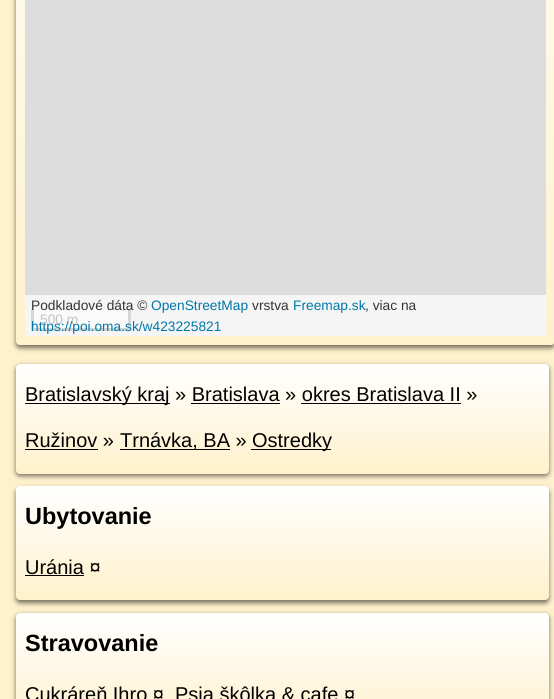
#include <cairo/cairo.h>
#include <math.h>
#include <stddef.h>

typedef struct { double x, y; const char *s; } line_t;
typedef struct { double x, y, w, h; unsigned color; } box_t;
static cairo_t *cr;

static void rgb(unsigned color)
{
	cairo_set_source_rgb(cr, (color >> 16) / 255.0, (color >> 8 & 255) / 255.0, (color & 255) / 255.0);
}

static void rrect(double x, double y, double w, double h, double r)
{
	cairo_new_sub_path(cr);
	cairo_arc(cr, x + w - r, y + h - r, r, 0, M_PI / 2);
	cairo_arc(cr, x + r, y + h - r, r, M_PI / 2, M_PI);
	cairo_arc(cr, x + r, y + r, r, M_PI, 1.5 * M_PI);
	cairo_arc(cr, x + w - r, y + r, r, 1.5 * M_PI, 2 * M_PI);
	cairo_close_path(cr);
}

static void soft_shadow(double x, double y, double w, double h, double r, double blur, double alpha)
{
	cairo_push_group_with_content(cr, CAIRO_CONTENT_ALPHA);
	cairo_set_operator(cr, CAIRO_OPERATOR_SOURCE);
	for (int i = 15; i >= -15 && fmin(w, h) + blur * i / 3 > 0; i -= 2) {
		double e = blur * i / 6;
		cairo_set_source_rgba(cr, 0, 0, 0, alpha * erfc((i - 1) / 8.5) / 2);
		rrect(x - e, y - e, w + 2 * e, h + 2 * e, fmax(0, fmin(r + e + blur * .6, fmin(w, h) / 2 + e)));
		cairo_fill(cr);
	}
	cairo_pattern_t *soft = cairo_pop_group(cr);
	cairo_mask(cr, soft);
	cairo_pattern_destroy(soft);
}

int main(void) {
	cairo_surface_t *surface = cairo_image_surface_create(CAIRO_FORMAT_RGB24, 554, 699);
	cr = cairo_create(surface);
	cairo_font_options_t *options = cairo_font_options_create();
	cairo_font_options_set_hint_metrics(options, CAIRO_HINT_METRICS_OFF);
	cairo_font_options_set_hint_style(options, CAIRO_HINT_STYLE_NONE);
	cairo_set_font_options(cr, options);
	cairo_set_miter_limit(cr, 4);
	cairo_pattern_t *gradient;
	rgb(0xfff1cc);
	cairo_paint(cr);
	rgb(0x000000);
	soft_shadow(16, -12, 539, 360, 4, 2.5, 0.55);
	gradient = cairo_pattern_create_linear(286, -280, 286, 345);
	cairo_pattern_add_color_stop_rgba(gradient, 0, 1, 1, 1, 1);
	cairo_pattern_add_color_stop_rgba(gradient, 1, 1, 0.945, 0.8, 1);
	cairo_set_source(cr, gradient);
	cairo_pattern_destroy(gradient);
	rrect(16, -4, 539, 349, 4);
	cairo_fill(cr);
	{
		static const box_t items[] = {
			{25, 0, 521, 295, 0xdddddd},
			{25, 295, 521, 41, 0xf5f5f5},
			{34, 309, 94, 19, 0xfafafa},
			{128, 309, 3, 21, 0xd6d6d6},
			{31, 328, 99, 3, 0xd6d6d6},
			{31, 309, 3, 21, 0xd6d6d6},
		};
		for (size_t i = 0; i < sizeof items / sizeof *items; i++) {
			rgb(items[i].color);
			cairo_rectangle(cr, items[i].x, items[i].y, items[i].w, items[i].h);
			cairo_fill(cr);
		}
	}
	rgb(0x000000);
	soft_shadow(16, 366, 533, 110, 4, 2.5, 0.55);
	gradient = cairo_pattern_create_linear(283, 364, 283, 474);
	cairo_pattern_add_color_stop_rgba(gradient, 0, 1, 1, 1, 1);
	cairo_pattern_add_color_stop_rgba(gradient, 1, 1, 0.945, 0.8, 1);
	cairo_set_source(cr, gradient);
	cairo_pattern_destroy(gradient);
	rrect(16, 364, 533, 110, 4);
	cairo_fill(cr);
	{
		static const box_t items[] = {
			{25, 403, 145, 1, 0x000000},
			{191, 403, 89, 1, 0x000000},
			{301, 403, 160, 1, 0x000000},
			{25, 449, 73, 1, 0x000000},
			{120, 449, 110, 1, 0x000000},
			{251, 449, 80, 1, 0x000000},
		};
		for (size_t i = 0; i < sizeof items / sizeof *items; i++) {
			rgb(items[i].color);
			cairo_rectangle(cr, items[i].x, items[i].y, items[i].w, items[i].h);
			cairo_fill(cr);
		}
	}
	rgb(0x000000);
	soft_shadow(16, 489, 533, 114, 4, 2.5, 0.55);
	gradient = cairo_pattern_create_linear(283, 486, 283, 600);
	cairo_pattern_add_color_stop_rgba(gradient, 0, 1, 1, 1, 1);
	cairo_pattern_add_color_stop_rgba(gradient, 1, 1, 0.945, 0.8, 1);
	cairo_set_source(cr, gradient);
	cairo_pattern_destroy(gradient);
	rrect(16, 486, 533, 114, 4);
	cairo_fill(cr);
	rgb(0x000000);
	cairo_rectangle(cr, 25, 575, 59, 1);
	cairo_fill(cr);
	rgb(0x000000);
	soft_shadow(16, 615, 533, 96, 4, 2.5, 0.55);
	gradient = cairo_pattern_create_linear(283, 613, 283, 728);
	cairo_pattern_add_color_stop_rgba(gradient, 0, 1, 1, 1, 1);
	cairo_pattern_add_color_stop_rgba(gradient, 1, 1, 0.945, 0.8, 1);
	cairo_set_source(cr, gradient);
	cairo_pattern_destroy(gradient);
	rrect(16, 613, 533, 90, 4);
	cairo_fill(cr);
	cairo_select_font_face(cr, "Liberation Sans", CAIRO_FONT_SLANT_NORMAL, CAIRO_FONT_WEIGHT_NORMAL);
	cairo_set_font_size(cr, 13.75);
	rgb(0x333333);
	cairo_move_to(cr, 31, 310);
	cairo_show_text(cr, "Podkladové dáta ©");
	rgb(0x0078a8);
	cairo_move_to(cr, 151, 310);
	cairo_show_text(cr, "OpenStreetMap");
	rgb(0x333333);
	cairo_move_to(cr, 252, 310);
	cairo_show_text(cr, "vrstva");
	rgb(0x0078a8);
	cairo_move_to(cr, 293, 310);
	cairo_show_text(cr, "Freemap.sk");
	rgb(0x333333);
	cairo_move_to(cr, 365, 310);
	cairo_show_text(cr, ", viac na");
	rgb(0x0078a8);
	cairo_move_to(cr, 31, 331);
	cairo_show_text(cr, "https://poi.oma.sk/w423225821");
	rgb(0xc2c2c2);
	cairo_move_to(cr, 40, 324);
	cairo_show_text(cr, "500 m");
	cairo_set_font_size(cr, 20);
	rgb(0x000000);
	{
		static const line_t items[] = {
			{25, 401, "Bratislavský kraj » Bratislava » okres Bratislava II »"},
			{25, 447, "Ružinov »"},
			{120, 447, "Trnávka, BA »"},
			{252, 447, "Ostredky"},
		};
		for (size_t i = 0; i < sizeof items / sizeof *items; i++) {
			cairo_move_to(cr, items[i].x, items[i].y);
			cairo_show_text(cr, items[i].s);
		}
	}
	cairo_select_font_face(cr, "Liberation Sans", CAIRO_FONT_SLANT_NORMAL, CAIRO_FONT_WEIGHT_BOLD);
	cairo_set_font_size(cr, 23.5);
	cairo_move_to(cr, 25, 524);
	cairo_show_text(cr, "Ubytovanie");
	cairo_select_font_face(cr, "Liberation Sans", CAIRO_FONT_SLANT_NORMAL, CAIRO_FONT_WEIGHT_NORMAL);
	cairo_set_font_size(cr, 20);
	cairo_move_to(cr, 25, 574);
	cairo_show_text(cr, "Uránia ¤");
	cairo_select_font_face(cr, "Liberation Sans", CAIRO_FONT_SLANT_NORMAL, CAIRO_FONT_WEIGHT_BOLD);
	cairo_set_font_size(cr, 23.5);
	cairo_move_to(cr, 25, 651);
	cairo_show_text(cr, "Stravovanie");
	cairo_select_font_face(cr, "Liberation Sans", CAIRO_FONT_SLANT_NORMAL, CAIRO_FONT_WEIGHT_NORMAL);
	cairo_set_font_size(cr, 20);
	cairo_move_to(cr, 25, 701);
	cairo_show_text(cr, "Cukráreň Ihro ¤");
	cairo_move_to(cr, 175, 701);
	cairo_show_text(cr, "Psia škôlka & cafe ¤");
	cairo_surface_write_to_png(surface, "page.png");
	cairo_font_options_destroy(options);
	cairo_destroy(cr);
	cairo_surface_destroy(surface);
	return 0;
}
